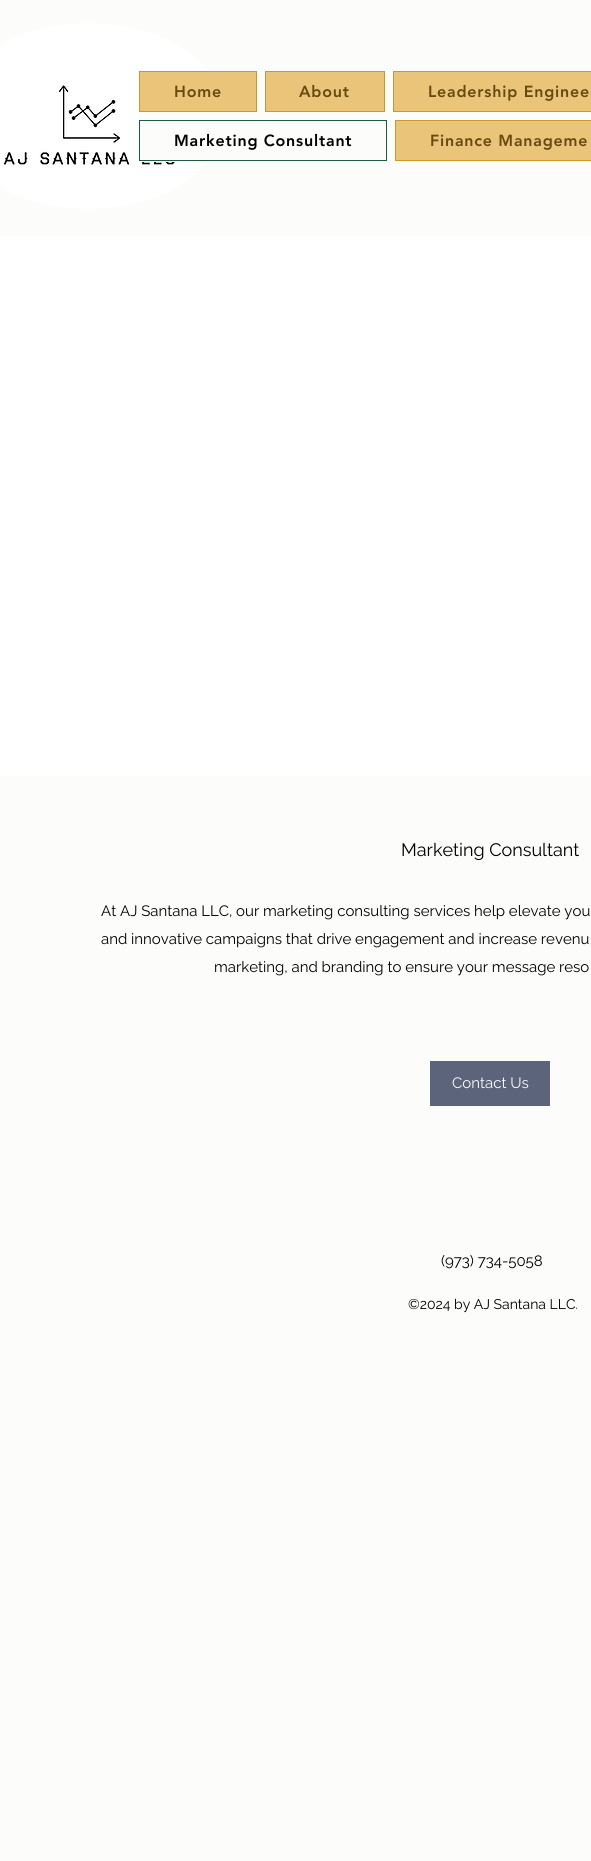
#include <cairo/cairo.h>
#include <math.h>
#include <stddef.h>

typedef struct { double x, y; const char *s; } line_t;
static cairo_t *cr;

static void rgb(unsigned color)
{
	cairo_set_source_rgb(cr, (color >> 16) / 255.0, (color >> 8 & 255) / 255.0, (color & 255) / 255.0);
}

static void tracked(double x, double y, const char *s, double letter, double word)
{
	cairo_move_to(cr, x, y);
	while (*s) {
		char ch[5] = {0};
		int n = 0;
		do ch[n++] = *s++; while ((*s & 0xC0) == 0x80);
		cairo_show_text(cr, ch);
		cairo_rel_move_to(cr, letter + word * (*ch == ' '), 0);
	}
}

static void image(const char *path, double x, double y, double w, double h)
{
	cairo_surface_t *image = cairo_image_surface_create_from_png(path);
	cairo_save(cr);
	cairo_set_source_surface(cr, image, x, y);
	cairo_rectangle(cr, x, y, w, h);
	cairo_fill(cr);
	cairo_restore(cr);
	cairo_surface_destroy(image);
}

int main(void) {
	cairo_surface_t *surface = cairo_image_surface_create(CAIRO_FORMAT_RGB24, 591, 1861);
	cr = cairo_create(surface);
	cairo_font_options_t *options = cairo_font_options_create();
	cairo_font_options_set_hint_metrics(options, CAIRO_HINT_METRICS_OFF);
	cairo_font_options_set_hint_style(options, CAIRO_HINT_STYLE_NONE);
	cairo_set_font_options(cr, options);
	cairo_set_miter_limit(cr, 4);
	rgb(0xfcfcfb);
	cairo_paint(cr);
	rgb(0xffffff);
	cairo_new_path(cr);
	cairo_move_to(cr, 89, 23);
	cairo_curve_to(cr, 165, 23, 227, 64.5, 227, 116);
	cairo_curve_to(cr, 227, 167.5, 165, 209, 89, 209);
	cairo_curve_to(cr, 13, 209, -49, 167.5, -49, 116);
	cairo_curve_to(cr, -49, 64.5, 13, 23, 89, 23);
	cairo_close_path(cr);
	cairo_fill(cr);
	image("img/1.png", 2, 85, 175, 80);
	rgb(0xfcfcfb);
	cairo_rectangle(cr, 138, 70, 89, 92);
	cairo_fill(cr);
	rgb(0xeac479);
	cairo_rectangle(cr, 139.5, 71.5, 117, 40);
	cairo_fill_preserve(cr);
	rgb(0xca9a28);
	cairo_set_line_width(cr, 1);
	cairo_stroke(cr);
	rgb(0xeac479);
	cairo_rectangle(cr, 265.5, 71.5, 119, 40);
	cairo_fill_preserve(cr);
	rgb(0xca9a28);
	cairo_stroke(cr);
	rgb(0xeac479);
	cairo_rectangle(cr, 393.5, 71.5, 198, 40);
	cairo_fill_preserve(cr);
	rgb(0xca9a28);
	cairo_stroke(cr);
	cairo_rectangle(cr, 139.5, 120.5, 247, 40);
	rgb(0x1b5b3f);
	cairo_stroke(cr);
	rgb(0xeac479);
	cairo_rectangle(cr, 395.5, 120.5, 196, 40);
	cairo_fill_preserve(cr);
	rgb(0xca9a28);
	cairo_stroke(cr);
	rgb(0xffffff);
	cairo_rectangle(cr, 0, 236, 591, 540);
	cairo_fill(cr);
	rgb(0x5c647c);
	cairo_rectangle(cr, 430, 1061, 120, 45);
	cairo_fill(cr);
	cairo_select_font_face(cr, "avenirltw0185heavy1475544 Black", CAIRO_FONT_SLANT_NORMAL, CAIRO_FONT_WEIGHT_NORMAL);
	cairo_set_font_size(cr, 16);
	rgb(0x664a10);
	{
		static const line_t items[] = {
			{174, 97, "Home"},
			{299, 97, "About"},
			{428, 97, "Leadership Enginee"},
		};
		for (size_t i = 0; i < sizeof items / sizeof *items; i++) {
			tracked(items[i].x, items[i].y, items[i].s, 0.8, 0);
		}
	}
	rgb(0x000000);
	tracked(174, 146, "Marketing Consultant", 0.8, 0);
	rgb(0x664a10);
	tracked(430, 146, "Finance Manageme", 0.8, 0);
	cairo_select_font_face(cr, "Raleway", CAIRO_FONT_SLANT_NORMAL, CAIRO_FONT_WEIGHT_NORMAL);
	cairo_set_font_size(cr, 18);
	rgb(0x000000);
	cairo_move_to(cr, 401, 856);
	cairo_show_text(cr, "Marketing Consultant");
	cairo_set_font_size(cr, 15);
	{
		static const line_t items[] = {
			{101, 916, "At AJ Santana LLC, our marketing consulting services help elevate you"},
			{101, 944, "and innovative campaigns that drive engagement and increase revenu"},
			{214, 972, "marketing, and branding to ensure your message reso"},
		};
		for (size_t i = 0; i < sizeof items / sizeof *items; i++) {
			cairo_move_to(cr, items[i].x, items[i].y);
			cairo_show_text(cr, items[i].s);
		}
	}
	rgb(0xfcfcfb);
	cairo_move_to(cr, 452, 1088);
	cairo_show_text(cr, "Contact Us");
	rgb(0x000000);
	cairo_move_to(cr, 441, 1266);
	cairo_show_text(cr, "(973) 734-5058");
	cairo_set_font_size(cr, 14);
	cairo_move_to(cr, 408, 1309);
	cairo_show_text(cr, "©2024 by AJ Santana LLC.");
	cairo_surface_write_to_png(surface, "page.png");
	cairo_font_options_destroy(options);
	cairo_destroy(cr);
	cairo_surface_destroy(surface);
	return 0;
}
